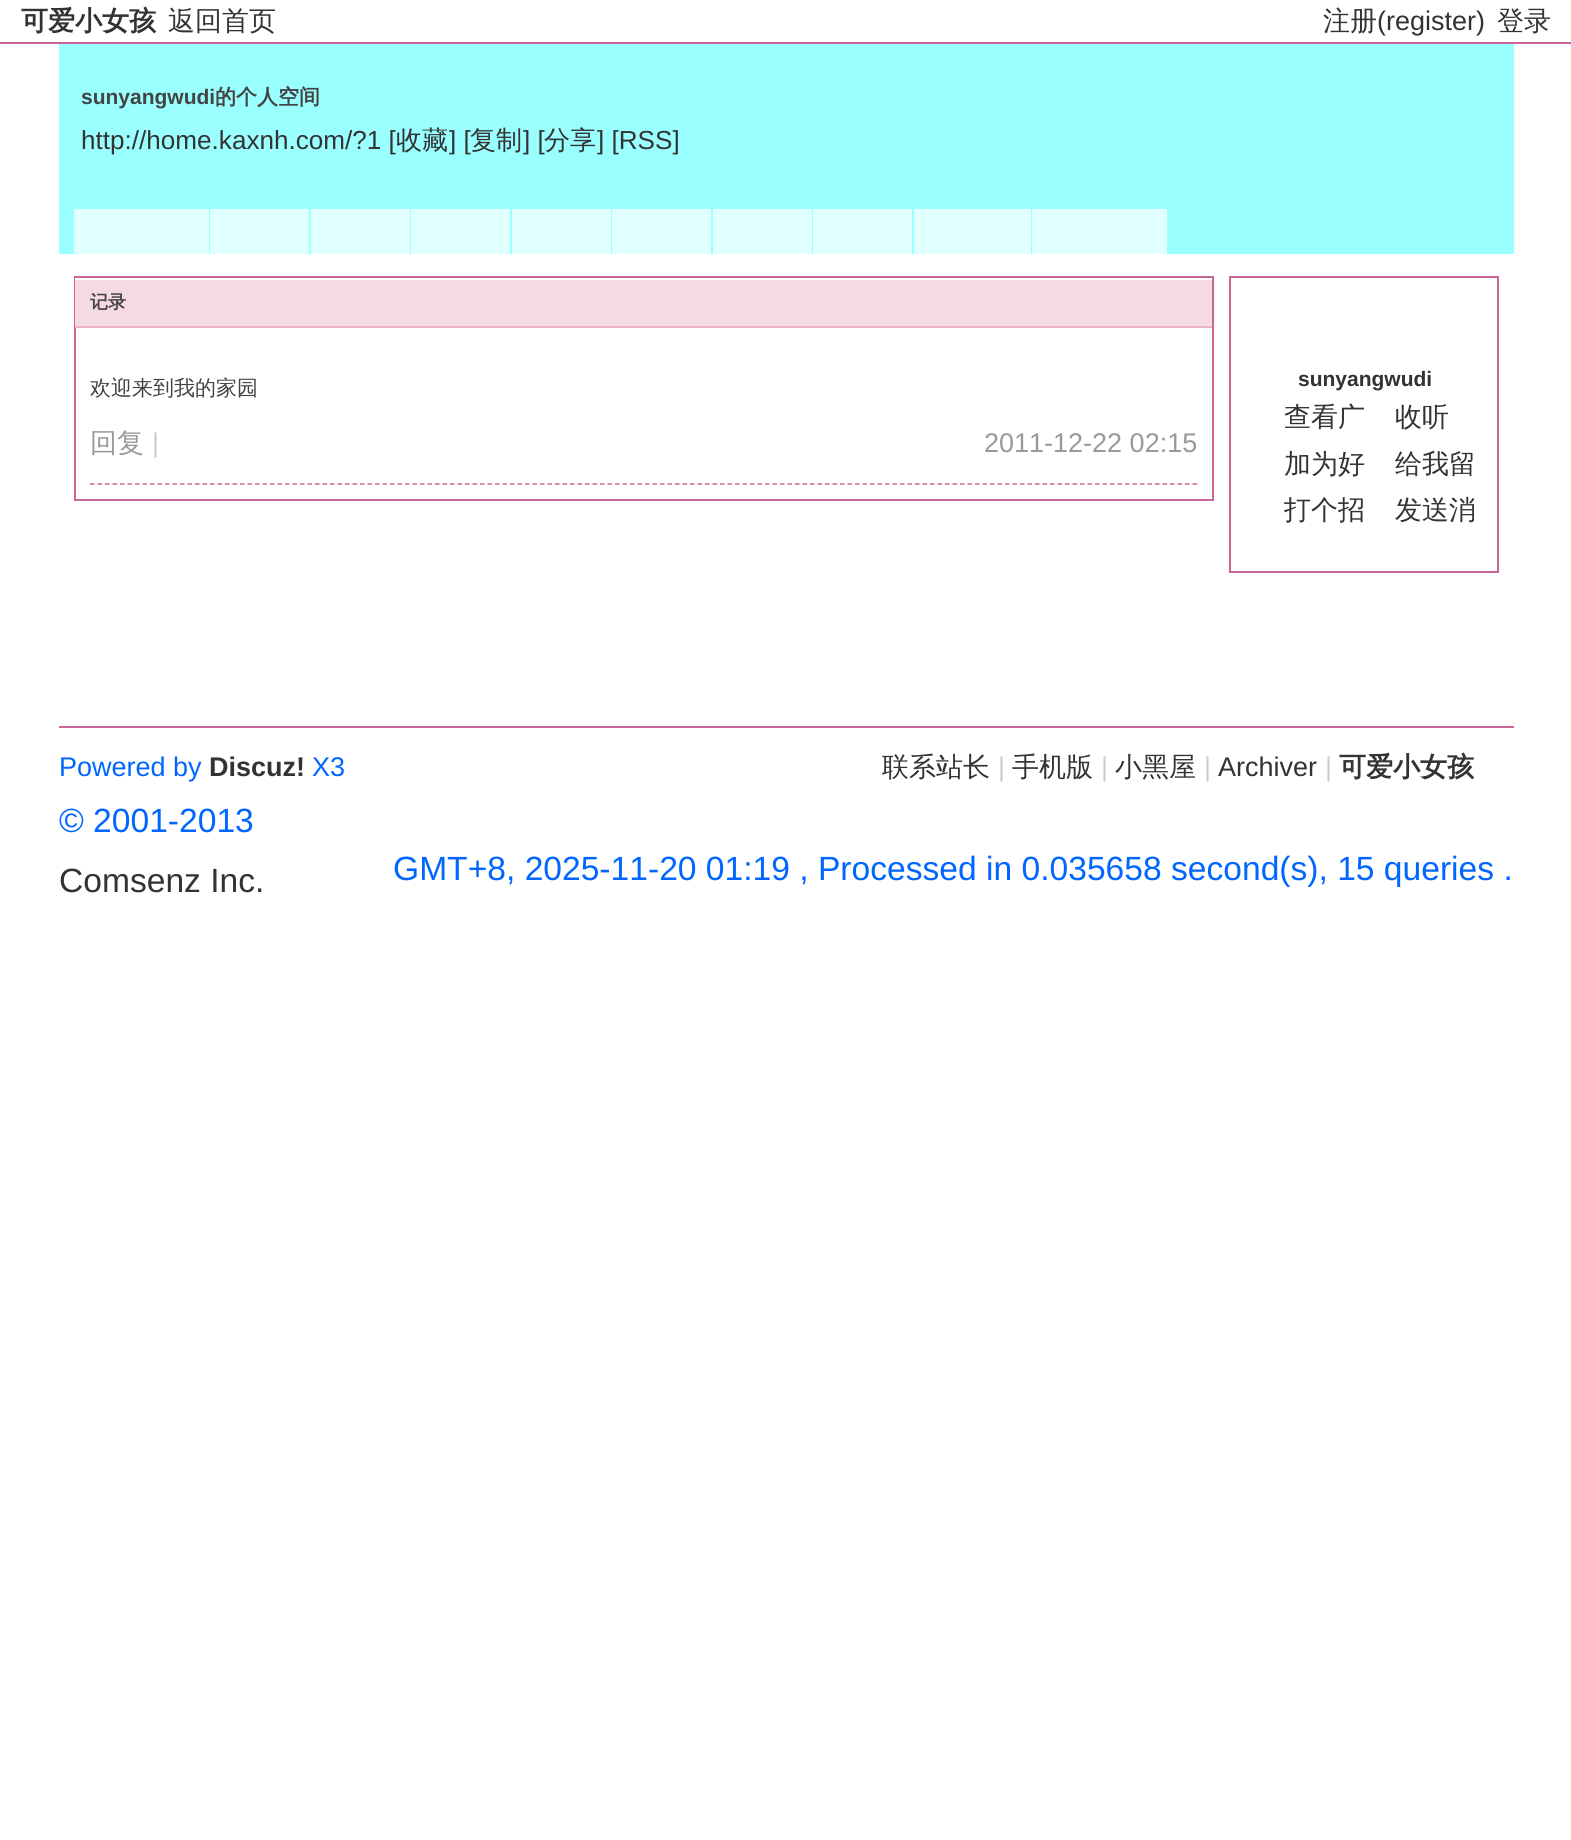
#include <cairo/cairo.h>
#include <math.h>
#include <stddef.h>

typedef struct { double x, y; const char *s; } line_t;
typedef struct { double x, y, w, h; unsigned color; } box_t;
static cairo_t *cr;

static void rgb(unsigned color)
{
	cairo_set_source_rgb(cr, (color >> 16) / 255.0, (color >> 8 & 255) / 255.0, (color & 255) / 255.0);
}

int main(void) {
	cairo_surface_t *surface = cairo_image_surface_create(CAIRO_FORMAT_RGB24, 1571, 1840);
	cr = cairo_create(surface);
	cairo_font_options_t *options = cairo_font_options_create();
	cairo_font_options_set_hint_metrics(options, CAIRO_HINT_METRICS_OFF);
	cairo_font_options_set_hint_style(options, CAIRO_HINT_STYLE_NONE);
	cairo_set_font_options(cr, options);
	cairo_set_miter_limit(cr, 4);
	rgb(0xffffff);
	cairo_paint(cr);
	{
		static const box_t items[] = {
			{0, 42, 1571, 2, 0xcc6699},
			{59, 44, 1455, 210, 0x99ffff},
			{74, 209, 135, 45, 0xe0ffff},
			{210, 209, 99, 45, 0xe0ffff},
			{311, 209, 99, 45, 0xe0ffff},
			{411, 209, 99, 45, 0xe0ffff},
			{512, 209, 99, 45, 0xe0ffff},
			{612, 209, 99, 45, 0xe0ffff},
			{713, 209, 99, 45, 0xe0ffff},
			{813, 209, 99, 45, 0xe0ffff},
			{914, 209, 117, 45, 0xe0ffff},
			{1032, 209, 135, 45, 0xe0ffff},
		};
		for (size_t i = 0; i < sizeof items / sizeof *items; i++) {
			rgb(items[i].color);
			cairo_rectangle(cr, items[i].x, items[i].y, items[i].w, items[i].h);
			cairo_fill(cr);
		}
	}
	cairo_rectangle(cr, 75, 277, 1138, 223);
	rgb(0xcc6699);
	cairo_stroke(cr);
	{
		static const box_t items[] = {
			{75, 280, 1137, 46, 0xf6dae3},
			{75, 278, 1, 2, 0xffffff},
			{75, 326, 1137, 2, 0xecb2c5},
		};
		for (size_t i = 0; i < sizeof items / sizeof *items; i++) {
			rgb(items[i].color);
			cairo_rectangle(cr, items[i].x, items[i].y, items[i].w, items[i].h);
			cairo_fill(cr);
		}
	}
	cairo_new_path(cr);
	cairo_move_to(cr, 90, 484);
	cairo_line_to(cr, 1197, 484);
	rgb(0xcc6699);
	cairo_set_line_width(cr, 1.5);
	cairo_set_dash(cr, (double[]){4.5, 3}, 2, 0);
	cairo_stroke(cr);
	cairo_rectangle(cr, 1230, 277, 268, 295);
	cairo_set_line_width(cr, 2);
	cairo_set_dash(cr, NULL, 0, 0);
	cairo_stroke(cr);
	cairo_rectangle(cr, 59, 726, 1455, 2);
	cairo_fill(cr);
	cairo_select_font_face(cr, "WenQuanYi Zen Hei", CAIRO_FONT_SLANT_NORMAL, CAIRO_FONT_WEIGHT_BOLD);
	cairo_set_font_size(cr, 27);
	rgb(0x333333);
	cairo_move_to(cr, 21, 30);
	cairo_show_text(cr, "可爱小女孩");
	cairo_select_font_face(cr, "WenQuanYi Zen Hei Medium", CAIRO_FONT_SLANT_NORMAL, CAIRO_FONT_WEIGHT_NORMAL);
	cairo_move_to(cr, 168, 30);
	cairo_show_text(cr, "返回首页");
	cairo_move_to(cr, 1323, 30);
	cairo_show_text(cr, "注册");
	cairo_select_font_face(cr, "Liberation Sans", CAIRO_FONT_SLANT_NORMAL, CAIRO_FONT_WEIGHT_NORMAL);
	cairo_move_to(cr, 1377, 30);
	cairo_show_text(cr, "(register)");
	cairo_select_font_face(cr, "WenQuanYi Zen Hei Medium", CAIRO_FONT_SLANT_NORMAL, CAIRO_FONT_WEIGHT_NORMAL);
	cairo_move_to(cr, 1497, 30);
	cairo_show_text(cr, "登录");
	cairo_select_font_face(cr, "Liberation Sans", CAIRO_FONT_SLANT_NORMAL, CAIRO_FONT_WEIGHT_BOLD);
	cairo_set_font_size(cr, 21);
	rgb(0x444444);
	cairo_move_to(cr, 81, 104);
	cairo_show_text(cr, "sunyangwudi");
	cairo_select_font_face(cr, "WenQuanYi Zen Hei", CAIRO_FONT_SLANT_NORMAL, CAIRO_FONT_WEIGHT_BOLD);
	cairo_move_to(cr, 215, 104);
	cairo_show_text(cr, "的个人空间");
	cairo_select_font_face(cr, "Liberation Sans", CAIRO_FONT_SLANT_NORMAL, CAIRO_FONT_WEIGHT_NORMAL);
	cairo_set_font_size(cr, 26.1);
	rgb(0x333333);
	cairo_move_to(cr, 81, 149);
	cairo_show_text(cr, "http://home.kaxnh.com/?1 [");
	cairo_select_font_face(cr, "WenQuanYi Zen Hei Medium", CAIRO_FONT_SLANT_NORMAL, CAIRO_FONT_WEIGHT_NORMAL);
	cairo_move_to(cr, 396, 149);
	cairo_show_text(cr, "收藏");
	cairo_select_font_face(cr, "Liberation Sans", CAIRO_FONT_SLANT_NORMAL, CAIRO_FONT_WEIGHT_NORMAL);
	cairo_move_to(cr, 449, 149);
	cairo_show_text(cr, "] [");
	cairo_select_font_face(cr, "WenQuanYi Zen Hei Medium", CAIRO_FONT_SLANT_NORMAL, CAIRO_FONT_WEIGHT_NORMAL);
	cairo_move_to(cr, 470, 149);
	cairo_show_text(cr, "复制");
	cairo_select_font_face(cr, "Liberation Sans", CAIRO_FONT_SLANT_NORMAL, CAIRO_FONT_WEIGHT_NORMAL);
	cairo_move_to(cr, 523, 149);
	cairo_show_text(cr, "] [");
	cairo_select_font_face(cr, "WenQuanYi Zen Hei Medium", CAIRO_FONT_SLANT_NORMAL, CAIRO_FONT_WEIGHT_NORMAL);
	cairo_move_to(cr, 544, 149);
	cairo_show_text(cr, "分享");
	cairo_select_font_face(cr, "Liberation Sans", CAIRO_FONT_SLANT_NORMAL, CAIRO_FONT_WEIGHT_NORMAL);
	cairo_move_to(cr, 597, 149);
	cairo_show_text(cr, "] [RSS]");
	cairo_select_font_face(cr, "WenQuanYi Zen Hei", CAIRO_FONT_SLANT_NORMAL, CAIRO_FONT_WEIGHT_BOLD);
	cairo_set_font_size(cr, 18);
	rgb(0x444444);
	cairo_move_to(cr, 90, 308);
	cairo_show_text(cr, "记录");
	cairo_select_font_face(cr, "WenQuanYi Zen Hei Medium", CAIRO_FONT_SLANT_NORMAL, CAIRO_FONT_WEIGHT_NORMAL);
	cairo_set_font_size(cr, 21);
	cairo_move_to(cr, 90, 395);
	cairo_show_text(cr, "欢迎来到我的家园");
	cairo_set_font_size(cr, 27);
	rgb(0x999999);
	cairo_move_to(cr, 90, 452);
	cairo_show_text(cr, "回复");
	cairo_select_font_face(cr, "Liberation Sans", CAIRO_FONT_SLANT_NORMAL, CAIRO_FONT_WEIGHT_NORMAL);
	rgb(0xcccccc);
	cairo_move_to(cr, 152, 452);
	cairo_show_text(cr, "|");
	rgb(0x999999);
	cairo_move_to(cr, 984, 452);
	cairo_show_text(cr, "2011-12-22 02:15");
	cairo_select_font_face(cr, "Liberation Sans", CAIRO_FONT_SLANT_NORMAL, CAIRO_FONT_WEIGHT_BOLD);
	cairo_set_font_size(cr, 21);
	rgb(0x333333);
	cairo_move_to(cr, 1298, 386);
	cairo_show_text(cr, "sunyangwudi");
	cairo_select_font_face(cr, "WenQuanYi Zen Hei Medium", CAIRO_FONT_SLANT_NORMAL, CAIRO_FONT_WEIGHT_NORMAL);
	cairo_set_font_size(cr, 27);
	{
		static const line_t items[] = {
			{1284, 426, "查看广"},
			{1395, 426, "收听"},
			{1284, 473, "加为好"},
			{1395, 473, "给我留"},
			{1284, 519, "打个招"},
			{1395, 519, "发送消"},
		};
		for (size_t i = 0; i < sizeof items / sizeof *items; i++) {
			cairo_move_to(cr, items[i].x, items[i].y);
			cairo_show_text(cr, items[i].s);
		}
	}
	cairo_select_font_face(cr, "Liberation Sans", CAIRO_FONT_SLANT_NORMAL, CAIRO_FONT_WEIGHT_NORMAL);
	rgb(0x0066ff);
	cairo_move_to(cr, 59, 776);
	cairo_show_text(cr, "Powered by");
	cairo_select_font_face(cr, "Liberation Sans", CAIRO_FONT_SLANT_NORMAL, CAIRO_FONT_WEIGHT_BOLD);
	rgb(0x333333);
	cairo_move_to(cr, 209, 776);
	cairo_show_text(cr, "Discuz!");
	cairo_select_font_face(cr, "Liberation Sans", CAIRO_FONT_SLANT_NORMAL, CAIRO_FONT_WEIGHT_NORMAL);
	rgb(0x0066ff);
	cairo_move_to(cr, 312, 776);
	cairo_show_text(cr, "X3");
	cairo_set_font_size(cr, 33.6);
	cairo_move_to(cr, 59, 832);
	cairo_show_text(cr, "© 2001-2013");
	rgb(0x333333);
	cairo_move_to(cr, 59, 892);
	cairo_show_text(cr, "Comsenz Inc.");
	cairo_select_font_face(cr, "WenQuanYi Zen Hei Medium", CAIRO_FONT_SLANT_NORMAL, CAIRO_FONT_WEIGHT_NORMAL);
	cairo_set_font_size(cr, 27);
	cairo_move_to(cr, 882, 776);
	cairo_show_text(cr, "联系站长");
	cairo_select_font_face(cr, "Liberation Sans", CAIRO_FONT_SLANT_NORMAL, CAIRO_FONT_WEIGHT_NORMAL);
	rgb(0xcccccc);
	cairo_move_to(cr, 998, 776);
	cairo_show_text(cr, "|");
	cairo_select_font_face(cr, "WenQuanYi Zen Hei Medium", CAIRO_FONT_SLANT_NORMAL, CAIRO_FONT_WEIGHT_NORMAL);
	rgb(0x333333);
	cairo_move_to(cr, 1012, 776);
	cairo_show_text(cr, "手机版");
	cairo_select_font_face(cr, "Liberation Sans", CAIRO_FONT_SLANT_NORMAL, CAIRO_FONT_WEIGHT_NORMAL);
	rgb(0xcccccc);
	cairo_move_to(cr, 1101, 776);
	cairo_show_text(cr, "|");
	cairo_select_font_face(cr, "WenQuanYi Zen Hei Medium", CAIRO_FONT_SLANT_NORMAL, CAIRO_FONT_WEIGHT_NORMAL);
	rgb(0x333333);
	cairo_move_to(cr, 1115, 776);
	cairo_show_text(cr, "小黑屋");
	cairo_select_font_face(cr, "Liberation Sans", CAIRO_FONT_SLANT_NORMAL, CAIRO_FONT_WEIGHT_NORMAL);
	rgb(0xcccccc);
	cairo_move_to(cr, 1204, 776);
	cairo_show_text(cr, "|");
	rgb(0x333333);
	cairo_move_to(cr, 1218, 776);
	cairo_show_text(cr, "Archiver");
	rgb(0xcccccc);
	cairo_move_to(cr, 1325, 776);
	cairo_show_text(cr, "|");
	cairo_select_font_face(cr, "WenQuanYi Zen Hei", CAIRO_FONT_SLANT_NORMAL, CAIRO_FONT_WEIGHT_BOLD);
	rgb(0x333333);
	cairo_move_to(cr, 1339, 776);
	cairo_show_text(cr, "可爱小女孩");
	cairo_select_font_face(cr, "Liberation Sans", CAIRO_FONT_SLANT_NORMAL, CAIRO_FONT_WEIGHT_NORMAL);
	cairo_set_font_size(cr, 33.6);
	rgb(0x0066ff);
	cairo_move_to(cr, 393, 880);
	cairo_show_text(cr, "GMT+8, 2025-11-20 01:19 , Processed in 0.035658 second(s), 15 queries .");
	cairo_surface_write_to_png(surface, "page.png");
	cairo_font_options_destroy(options);
	cairo_destroy(cr);
	cairo_surface_destroy(surface);
	return 0;
}
